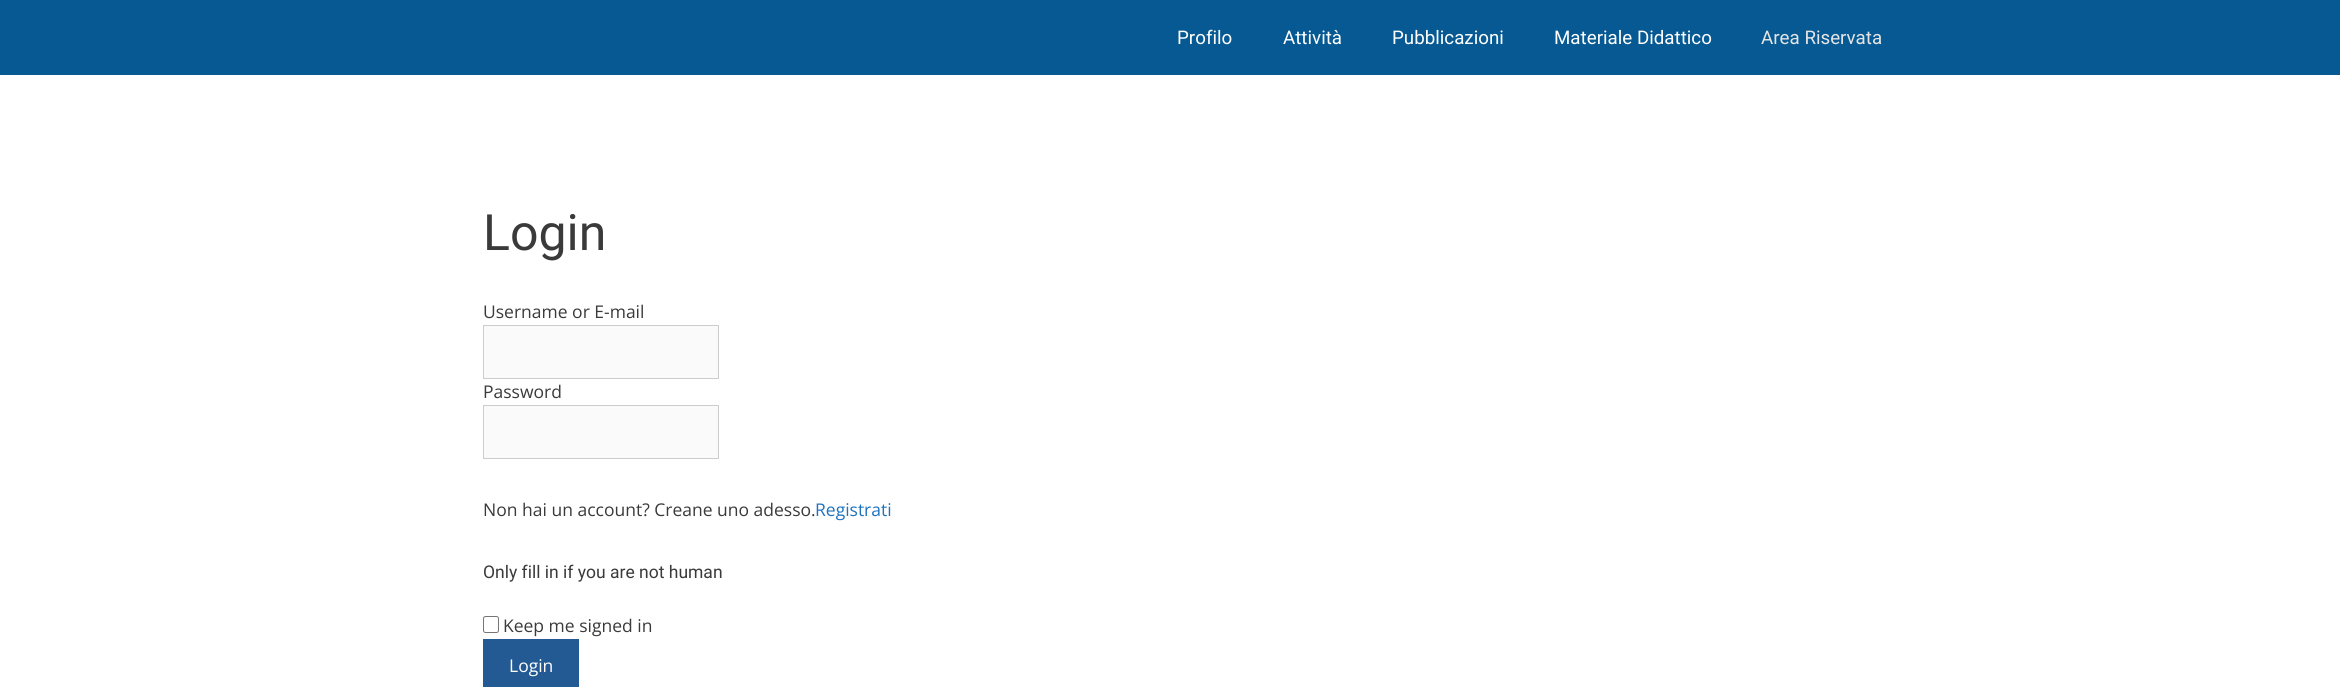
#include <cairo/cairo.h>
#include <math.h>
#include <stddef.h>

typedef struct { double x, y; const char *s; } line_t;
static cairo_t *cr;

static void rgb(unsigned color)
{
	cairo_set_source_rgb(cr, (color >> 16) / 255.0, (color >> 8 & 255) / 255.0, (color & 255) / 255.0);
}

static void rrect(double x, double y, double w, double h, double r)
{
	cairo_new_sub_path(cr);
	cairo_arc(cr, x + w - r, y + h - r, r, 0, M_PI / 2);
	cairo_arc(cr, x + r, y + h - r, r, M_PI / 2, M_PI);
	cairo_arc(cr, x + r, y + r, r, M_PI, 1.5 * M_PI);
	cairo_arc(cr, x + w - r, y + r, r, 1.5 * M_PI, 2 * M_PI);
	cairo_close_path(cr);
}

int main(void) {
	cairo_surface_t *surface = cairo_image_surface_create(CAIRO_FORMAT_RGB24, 2340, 687);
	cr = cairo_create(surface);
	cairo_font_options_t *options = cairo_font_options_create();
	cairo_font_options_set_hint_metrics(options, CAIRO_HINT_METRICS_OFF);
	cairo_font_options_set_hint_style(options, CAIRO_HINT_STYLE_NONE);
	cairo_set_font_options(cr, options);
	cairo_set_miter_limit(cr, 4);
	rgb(0xffffff);
	cairo_paint(cr);
	rgb(0x075993);
	cairo_rectangle(cr, 0, 0, 2340, 75);
	cairo_fill(cr);
	rgb(0xfafafa);
	cairo_rectangle(cr, 483.5, 325.5, 235, 53);
	cairo_fill_preserve(cr);
	rgb(0xcccccc);
	cairo_set_line_width(cr, 1);
	cairo_stroke(cr);
	rgb(0xfafafa);
	cairo_rectangle(cr, 483.5, 405.5, 235, 53);
	cairo_fill_preserve(cr);
	rgb(0xcccccc);
	cairo_stroke(cr);
	rrect(483.5, 616.5, 15, 16, 2);
	rgb(0x767676);
	cairo_stroke(cr);
	rgb(0x245a94);
	cairo_rectangle(cr, 483, 639, 96, 48);
	cairo_fill(cr);
	cairo_select_font_face(cr, "Roboto", CAIRO_FONT_SLANT_NORMAL, CAIRO_FONT_WEIGHT_NORMAL);
	cairo_set_font_size(cr, 18.75);
	rgb(0xffffff);
	{
		static const line_t items[] = {
			{1177, 44, "Profilo"},
			{1283, 44, "Attività"},
			{1392, 44, "Pubblicazioni"},
			{1554, 44, "Materiale Didattico"},
		};
		for (size_t i = 0; i < sizeof items / sizeof *items; i++) {
			cairo_move_to(cr, items[i].x, items[i].y);
			cairo_show_text(cr, items[i].s);
		}
	}
	rgb(0xe5e5e5);
	cairo_move_to(cr, 1761, 44);
	cairo_show_text(cr, "Area Riservata");
	cairo_set_font_size(cr, 50);
	rgb(0x3a3a3a);
	cairo_move_to(cr, 483, 250);
	cairo_show_text(cr, "Login");
	cairo_select_font_face(cr, "Open Sans", CAIRO_FONT_SLANT_NORMAL, CAIRO_FONT_WEIGHT_NORMAL);
	cairo_set_font_size(cr, 17.5);
	{
		static const line_t items[] = {
			{483, 318, "Username or E-mail"},
			{483, 398, "Password"},
			{483, 516, "Non hai un account? Creane uno adesso."},
		};
		for (size_t i = 0; i < sizeof items / sizeof *items; i++) {
			cairo_move_to(cr, items[i].x, items[i].y);
			cairo_show_text(cr, items[i].s);
		}
	}
	rgb(0x1e73be);
	cairo_move_to(cr, 815, 516);
	cairo_show_text(cr, "Registrati");
	cairo_select_font_face(cr, "Roboto", CAIRO_FONT_SLANT_NORMAL, CAIRO_FONT_WEIGHT_NORMAL);
	rgb(0x3a3a3a);
	cairo_move_to(cr, 483, 578);
	cairo_show_text(cr, "Only fill in if you are not human");
	cairo_select_font_face(cr, "Open Sans", CAIRO_FONT_SLANT_NORMAL, CAIRO_FONT_WEIGHT_NORMAL);
	cairo_move_to(cr, 503, 632);
	cairo_show_text(cr, "Keep me signed in");
	rgb(0xffffff);
	cairo_move_to(cr, 509, 672);
	cairo_show_text(cr, "Login");
	cairo_surface_write_to_png(surface, "page.png");
	cairo_font_options_destroy(options);
	cairo_destroy(cr);
	cairo_surface_destroy(surface);
	return 0;
}
